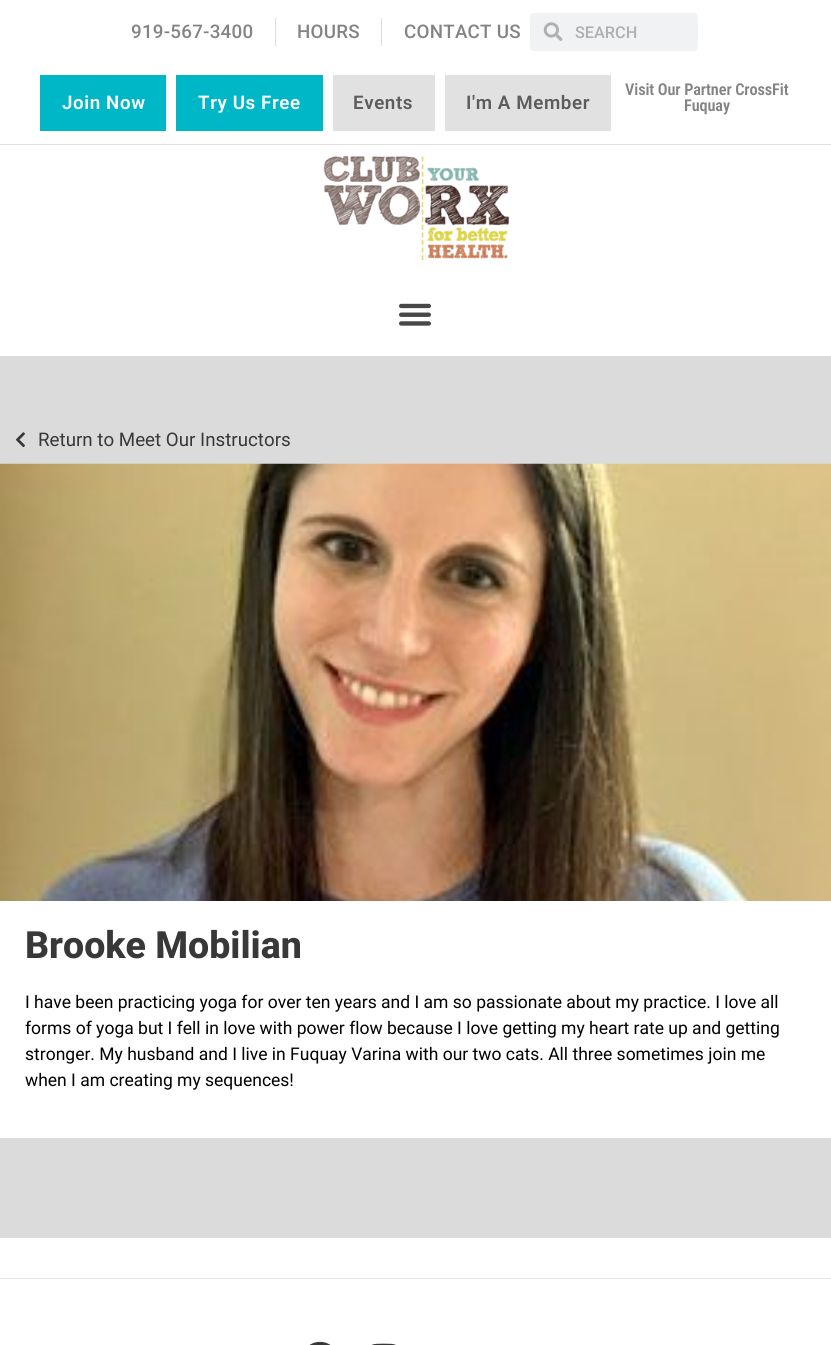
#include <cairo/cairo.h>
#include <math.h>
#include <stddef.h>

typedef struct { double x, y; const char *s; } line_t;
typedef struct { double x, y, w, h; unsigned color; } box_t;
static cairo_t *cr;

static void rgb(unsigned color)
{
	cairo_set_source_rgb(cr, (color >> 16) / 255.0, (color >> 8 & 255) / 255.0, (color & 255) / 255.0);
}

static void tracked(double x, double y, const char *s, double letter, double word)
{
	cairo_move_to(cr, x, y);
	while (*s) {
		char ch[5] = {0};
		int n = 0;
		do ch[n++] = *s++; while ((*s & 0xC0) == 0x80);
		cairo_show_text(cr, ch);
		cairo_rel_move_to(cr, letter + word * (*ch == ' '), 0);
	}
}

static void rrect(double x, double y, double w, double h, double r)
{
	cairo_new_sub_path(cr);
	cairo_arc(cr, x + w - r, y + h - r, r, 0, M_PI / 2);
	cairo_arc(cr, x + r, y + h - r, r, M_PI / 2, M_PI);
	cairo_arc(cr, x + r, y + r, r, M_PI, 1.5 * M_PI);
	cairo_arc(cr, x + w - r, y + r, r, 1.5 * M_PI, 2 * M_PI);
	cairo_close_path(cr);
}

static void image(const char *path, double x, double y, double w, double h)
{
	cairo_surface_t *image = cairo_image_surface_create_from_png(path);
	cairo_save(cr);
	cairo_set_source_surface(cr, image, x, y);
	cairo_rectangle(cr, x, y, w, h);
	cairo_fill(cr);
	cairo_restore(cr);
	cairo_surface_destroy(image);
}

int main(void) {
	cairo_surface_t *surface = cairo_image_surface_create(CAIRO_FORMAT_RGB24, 831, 1345);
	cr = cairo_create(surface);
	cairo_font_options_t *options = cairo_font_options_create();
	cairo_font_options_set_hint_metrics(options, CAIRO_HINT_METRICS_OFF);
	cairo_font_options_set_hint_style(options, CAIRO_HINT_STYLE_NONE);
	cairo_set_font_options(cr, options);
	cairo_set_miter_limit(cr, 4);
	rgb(0xffffff);
	cairo_paint(cr);
	{
		static const box_t items[] = {
			{0, 144, 831, 1, 0xe0e0e0},
			{275, 18, 1, 28, 0xdddddd},
			{381, 18, 1, 28, 0xdddddd},
		};
		for (size_t i = 0; i < sizeof items / sizeof *items; i++) {
			rgb(items[i].color);
			cairo_rectangle(cr, items[i].x, items[i].y, items[i].w, items[i].h);
			cairo_fill(cr);
		}
	}
	rgb(0xf1f2f3);
	rrect(530, 13, 168, 38, 4);
	cairo_fill(cr);
	image("img/1.png", 543, 22, 20, 19);
	{
		static const box_t items[] = {
			{40, 75, 126, 56, 0x00b7c7},
			{176, 75, 147, 56, 0x00b7c7},
			{333, 75, 102, 56, 0xe1e1e1},
			{445, 75, 166, 56, 0xe1e1e1},
		};
		for (size_t i = 0; i < sizeof items / sizeof *items; i++) {
			rgb(items[i].color);
			cairo_rectangle(cr, items[i].x, items[i].y, items[i].w, items[i].h);
			cairo_fill(cr);
		}
	}
	image("img/2.png", 323, 156, 186, 104);
	image("img/3.png", 399, 303, 32, 23);
	rgb(0xdbdbdb);
	cairo_rectangle(cr, 0, 356, 831, 108);
	cairo_fill(cr);
	image("img/4.png", 16, 432, 9, 16);
	cairo_rectangle(cr, 0, 1138, 831, 100);
	cairo_fill(cr);
	image("img/5.png", 0, 463, 831, 438);
	rgb(0xe6e6e6);
	cairo_rectangle(cr, 0, 1278, 831, 1);
	cairo_fill(cr);
	image("img/6.png", 309, 1341, 22, 4);
	image("img/7.png", 371, 1343, 25, 2);
	cairo_select_font_face(cr, "Roboto Medium", CAIRO_FONT_SLANT_NORMAL, CAIRO_FONT_WEIGHT_NORMAL);
	cairo_set_font_size(cr, 18.75);
	rgb(0x838383);
	{
		static const line_t items[] = {
			{131, 38, "919-567-3400"},
			{297, 38, "HOURS"},
			{404, 38, "CONTACT US"},
		};
		for (size_t i = 0; i < sizeof items / sizeof *items; i++) {
			tracked(items[i].x, items[i].y, items[i].s, 0.25, 0);
		}
	}
	cairo_set_font_size(cr, 16.25);
	rgb(0xafafb0);
	cairo_move_to(cr, 575, 38);
	cairo_show_text(cr, "SEARCH");
	cairo_select_font_face(cr, "Roboto SemiBold", CAIRO_FONT_SLANT_NORMAL, CAIRO_FONT_WEIGHT_NORMAL);
	cairo_set_font_size(cr, 18.75);
	rgb(0xffffff);
	tracked(62, 109, "Join Now", 0.6, 0);
	tracked(198, 109, "Try Us Free", 0.6, 0);
	rgb(0x5c5c5c);
	tracked(353, 109, "Events", 0.6, 0);
	tracked(466, 109, "I'm A Member", 0.6, 0);
	cairo_select_font_face(cr, "Roboto Condensed SemiBold", CAIRO_FONT_SLANT_NORMAL, CAIRO_FONT_WEIGHT_NORMAL);
	cairo_set_font_size(cr, 16.25);
	rgb(0x838383);
	tracked(625, 95, "Visit Our Partner CrossFit", -0.1, 0);
	tracked(684, 111, "Fuquay", -0.1, 0);
	cairo_select_font_face(cr, "Roboto", CAIRO_FONT_SLANT_NORMAL, CAIRO_FONT_WEIGHT_NORMAL);
	cairo_set_font_size(cr, 18.75);
	rgb(0x383838);
	cairo_move_to(cr, 38, 446);
	cairo_show_text(cr, "Return to Meet Our Instructors");
	cairo_select_font_face(cr, "Roboto ExtraBold", CAIRO_FONT_SLANT_NORMAL, CAIRO_FONT_WEIGHT_NORMAL);
	cairo_set_font_size(cr, 37.5);
	cairo_move_to(cr, 25, 958);
	cairo_show_text(cr, "Brooke Mobilian");
	cairo_select_font_face(cr, "Roboto", CAIRO_FONT_SLANT_NORMAL, CAIRO_FONT_WEIGHT_NORMAL);
	cairo_set_font_size(cr, 17.5);
	rgb(0x000000);
	{
		static const line_t items[] = {
			{25, 1008, "I have been practicing yoga for over ten years and I am so passionate about my practice. I love all"},
			{25, 1034, "forms of yoga but I fell in love with power flow because I love getting my heart rate up and getting"},
			{25, 1060, "stronger. My husband and I live in Fuquay Varina with our two cats. All three sometimes join me"},
			{25, 1086, "when I am creating my sequences!"},
		};
		for (size_t i = 0; i < sizeof items / sizeof *items; i++) {
			cairo_move_to(cr, items[i].x, items[i].y);
			cairo_show_text(cr, items[i].s);
		}
	}
	cairo_surface_write_to_png(surface, "page.png");
	cairo_font_options_destroy(options);
	cairo_destroy(cr);
	cairo_surface_destroy(surface);
	return 0;
}
